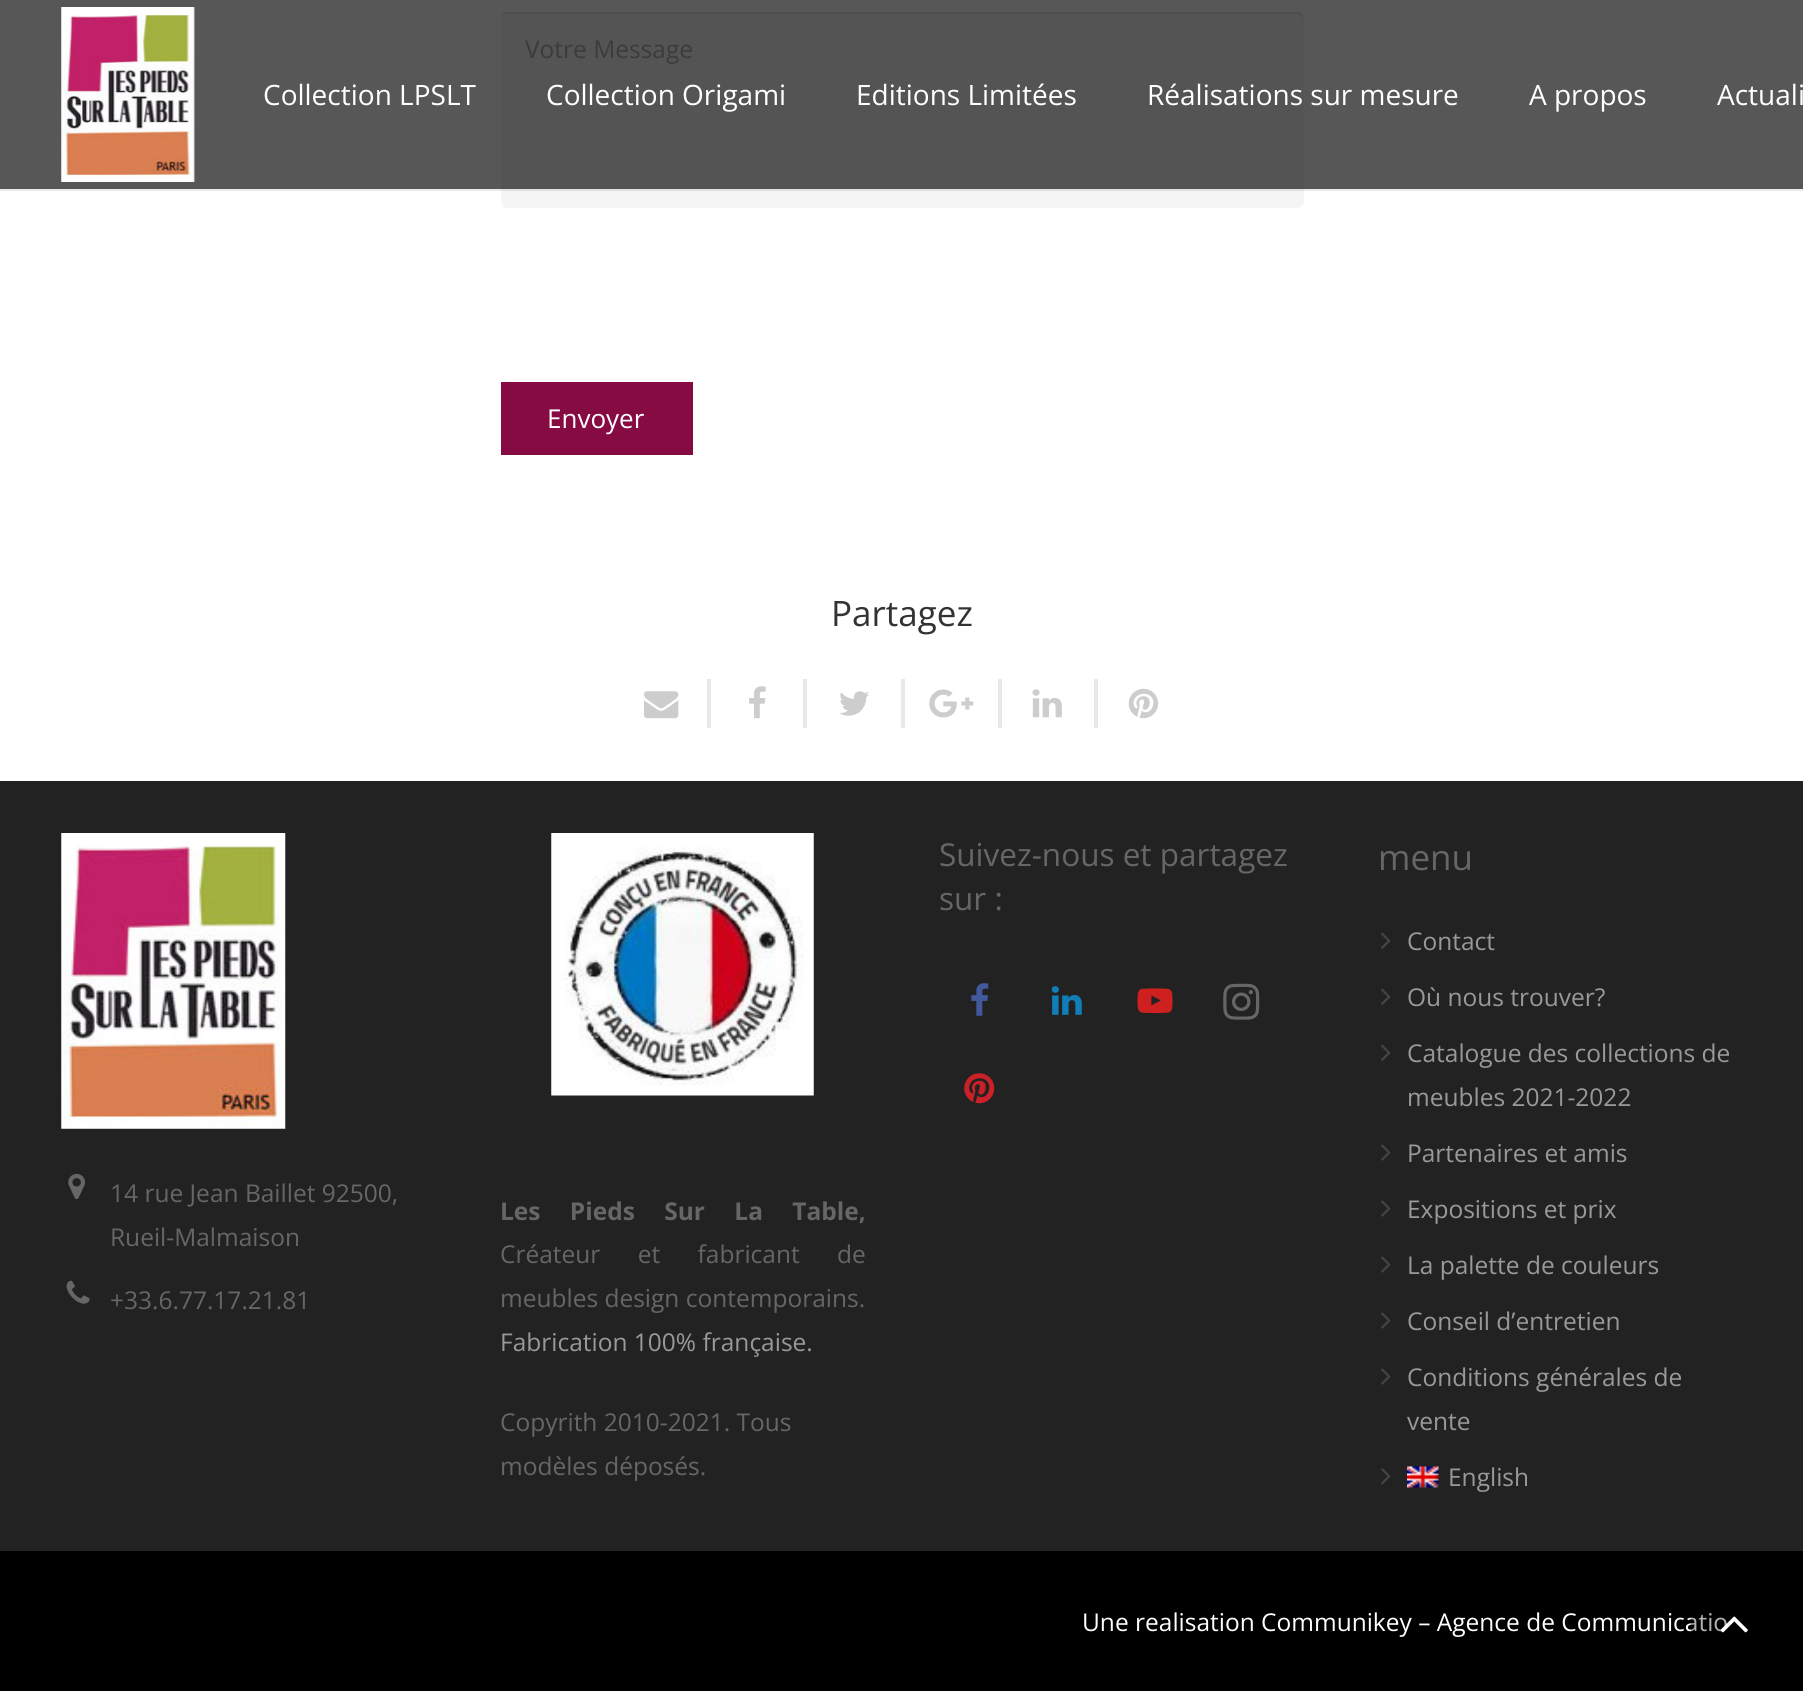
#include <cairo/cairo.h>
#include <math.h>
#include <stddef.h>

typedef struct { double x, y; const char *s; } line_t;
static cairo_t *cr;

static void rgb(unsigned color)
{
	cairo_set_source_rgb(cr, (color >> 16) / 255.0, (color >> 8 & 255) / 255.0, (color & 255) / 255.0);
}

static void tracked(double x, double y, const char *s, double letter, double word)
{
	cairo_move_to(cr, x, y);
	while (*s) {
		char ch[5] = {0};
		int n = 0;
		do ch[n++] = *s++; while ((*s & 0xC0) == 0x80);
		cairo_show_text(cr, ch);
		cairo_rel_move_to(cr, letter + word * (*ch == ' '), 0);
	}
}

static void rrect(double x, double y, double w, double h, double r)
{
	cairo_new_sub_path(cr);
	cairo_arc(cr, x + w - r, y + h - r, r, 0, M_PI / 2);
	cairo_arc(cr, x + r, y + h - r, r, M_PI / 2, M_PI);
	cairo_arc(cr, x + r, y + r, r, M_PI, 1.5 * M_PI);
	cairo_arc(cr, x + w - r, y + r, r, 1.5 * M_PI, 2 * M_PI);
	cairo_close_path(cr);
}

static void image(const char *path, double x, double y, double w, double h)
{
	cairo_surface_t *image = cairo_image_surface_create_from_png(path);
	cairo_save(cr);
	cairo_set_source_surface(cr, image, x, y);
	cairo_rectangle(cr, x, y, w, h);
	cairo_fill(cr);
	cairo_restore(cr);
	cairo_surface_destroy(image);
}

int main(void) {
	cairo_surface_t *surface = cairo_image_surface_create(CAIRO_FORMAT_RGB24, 1803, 1691);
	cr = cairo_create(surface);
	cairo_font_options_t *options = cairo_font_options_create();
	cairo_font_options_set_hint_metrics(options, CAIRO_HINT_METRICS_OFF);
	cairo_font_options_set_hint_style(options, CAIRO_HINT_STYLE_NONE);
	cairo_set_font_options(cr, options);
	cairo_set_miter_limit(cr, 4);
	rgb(0xffffff);
	cairo_paint(cr);
	rgb(0xebebeb);
	cairo_rectangle(cr, 0, 189, 1803, 2);
	cairo_fill(cr);
	rgb(0xf5f5f5);
	rrect(501, 12, 803, 196, 7);
	cairo_fill(cr);
	rgb(0xe1e1e1);
	cairo_rectangle(cr, 501, 189, 803, 2);
	cairo_fill(cr);
	cairo_set_source_rgba(cr, 0, 0, 0, 0.08);
	cairo_new_path(cr);
	cairo_move_to(cr, 508, 14);
	cairo_line_to(cr, 1296, 14);
	cairo_curve_to(cr, 1300, 14, 1304, 17, 1304, 21);
	cairo_line_to(cr, 1304, 19);
	cairo_curve_to(cr, 1304, 15, 1301, 12, 1297, 12);
	cairo_line_to(cr, 508, 12);
	cairo_curve_to(cr, 505, 12, 502, 14, 501, 17);
	cairo_curve_to(cr, 503, 15, 505, 14, 508, 14);
	cairo_close_path(cr);
	cairo_fill(cr);
	rgb(0x870b43);
	cairo_rectangle(cr, 501, 382, 192, 73);
	cairo_fill(cr);
	rgb(0xe8e8e8);
	cairo_rectangle(cr, 707, 679, 4, 49);
	cairo_fill(cr);
	image("img/1.png", 644, 691, 35, 28);
	cairo_rectangle(cr, 803, 679, 4, 49);
	cairo_fill(cr);
	image("img/2.png", 749, 686, 17, 33);
	cairo_rectangle(cr, 901, 679, 4, 49);
	cairo_fill(cr);
	image("img/3.png", 839, 691, 30, 25);
	cairo_rectangle(cr, 998, 679, 4, 49);
	cairo_fill(cr);
	image("img/4.png", 929, 689, 45, 29);
	cairo_rectangle(cr, 1094, 679, 4, 49);
	cairo_fill(cr);
	image("img/5.png", 1032, 689, 30, 29);
	image("img/6.png", 1128, 688, 31, 31);
	rgb(0x222222);
	cairo_rectangle(cr, 0, 781, 1803, 770);
	cairo_fill(cr);
	image("img/8.png", 61, 833, 225, 296);
	image("img/9.png", 68, 1173, 17, 26);
	image("img/10.png", 66, 1280, 24, 24);
	image("img/11.png", 551, 833, 263, 263);
	image("img/12.png", 971, 983, 18, 33);
	image("img/13.png", 1051, 986, 31, 29);
	image("img/14.png", 1137, 988, 36, 26);
	image("img/15.png", 1223, 983, 37, 37);
	image("img/16.png", 964, 1073, 31, 31);
	image("img/17.png", 1381, 932, 10, 17);
	image("img/17.png", 1381, 988, 10, 17);
	image("img/17.png", 1381, 1044, 10, 17);
	image("img/18.png", 1381, 1144, 10, 17);
	image("img/18.png", 1381, 1200, 10, 17);
	image("img/18.png", 1381, 1256, 10, 17);
	image("img/18.png", 1381, 1312, 10, 17);
	image("img/18.png", 1381, 1368, 10, 17);
	image("img/19.png", 1381, 1468, 10, 17);
	image("img/20.png", 1407, 1466, 32, 22);
	rgb(0x000000);
	cairo_rectangle(cr, 0, 1551, 1803, 140);
	cairo_fill(cr);
	cairo_select_font_face(cr, "Open Sans", CAIRO_FONT_SLANT_NORMAL, CAIRO_FONT_WEIGHT_NORMAL);
	cairo_set_font_size(cr, 24.5);
	rgb(0xaeaeae);
	cairo_move_to(cr, 525, 58);
	cairo_show_text(cr, "Votre Message");
	cairo_set_font_size(cr, 26);
	rgb(0xffffff);
	cairo_move_to(cr, 547, 428);
	cairo_show_text(cr, "Envoyer");
	cairo_set_font_size(cr, 35);
	rgb(0x333333);
	cairo_move_to(cr, 831, 626);
	cairo_show_text(cr, "Partagez");
	cairo_set_source_rgba(cr, 0, 0, 0, 0.66);
	cairo_rectangle(cr, 0, 0, 1803, 189);
	cairo_fill(cr);
	image("img/7.png", 61, 7, 134, 175);
	cairo_set_font_size(cr, 28);
	rgb(0xffffff);
	{
		static const line_t items[] = {
			{263, 105, "Collection LPSLT"},
			{546, 105, "Collection Origami"},
			{856, 105, "Editions Limitées"},
			{1147, 105, "Réalisations sur mesure"},
			{1529, 105, "A propos"},
			{1717, 105, "Actuali"},
		};
		for (size_t i = 0; i < sizeof items / sizeof *items; i++) {
			cairo_move_to(cr, items[i].x, items[i].y);
			cairo_show_text(cr, items[i].s);
		}
	}
	cairo_set_font_size(cr, 24.5);
	rgb(0x666666);
	{
		static const line_t items[] = {
			{110, 1202, "14 rue Jean Baillet 92500,"},
			{110, 1246, "Rueil-Malmaison"},
			{110, 1309, "+33.6.77.17.21.81"},
		};
		for (size_t i = 0; i < sizeof items / sizeof *items; i++) {
			cairo_move_to(cr, items[i].x, items[i].y);
			cairo_show_text(cr, items[i].s);
		}
	}
	cairo_select_font_face(cr, "Open Sans", CAIRO_FONT_SLANT_NORMAL, CAIRO_FONT_WEIGHT_BOLD);
	tracked(500, 1220, "Les Pieds Sur La Table,", 0, 23);
	cairo_select_font_face(cr, "Open Sans", CAIRO_FONT_SLANT_NORMAL, CAIRO_FONT_WEIGHT_NORMAL);
	tracked(500, 1263, "Créateur et fabricant de", 0, 31);
	cairo_move_to(cr, 500, 1307);
	cairo_show_text(cr, "meubles design contemporains.");
	rgb(0x999999);
	cairo_move_to(cr, 500, 1351);
	cairo_show_text(cr, "Fabrication 100% française.");
	rgb(0x666666);
	cairo_move_to(cr, 500, 1431);
	cairo_show_text(cr, "Copyrith 2010-2021. Tous");
	cairo_move_to(cr, 500, 1475);
	cairo_show_text(cr, "modèles déposés.");
	cairo_set_font_size(cr, 31.5);
	cairo_move_to(cr, 939, 866);
	cairo_show_text(cr, "Suivez-nous et partagez");
	cairo_move_to(cr, 939, 910);
	cairo_show_text(cr, "sur :");
	cairo_set_font_size(cr, 35);
	cairo_move_to(cr, 1378, 870);
	cairo_show_text(cr, "menu");
	cairo_set_font_size(cr, 24.5);
	rgb(0x999999);
	{
		static const line_t items[] = {
			{1407, 950, "Contact"},
			{1407, 1006, "Où nous trouver?"},
			{1407, 1062, "Catalogue des collections de"},
			{1407, 1106, "meubles 2021-2022"},
			{1407, 1162, "Partenaires et amis"},
			{1407, 1218, "Expositions et prix"},
			{1407, 1274, "La palette de couleurs"},
			{1407, 1330, "Conseil d’entretien"},
			{1407, 1386, "Conditions générales de"},
			{1407, 1430, "vente"},
			{1448, 1486, "English"},
		};
		for (size_t i = 0; i < sizeof items / sizeof *items; i++) {
			cairo_move_to(cr, items[i].x, items[i].y);
			cairo_show_text(cr, items[i].s);
		}
	}
	rgb(0xffffff);
	cairo_move_to(cr, 1082, 1631);
	cairo_show_text(cr, "Une realisation Communikey – Agence de Communicatio");
	cairo_set_source_rgba(cr, 0, 0, 0, 0.3);
	rrect(1691, 1579, 87, 87, 7);
	cairo_fill(cr);
	image("img/21.png", 1720, 1616, 28, 17);
	cairo_surface_write_to_png(surface, "page.png");
	cairo_font_options_destroy(options);
	cairo_destroy(cr);
	cairo_surface_destroy(surface);
	return 0;
}
